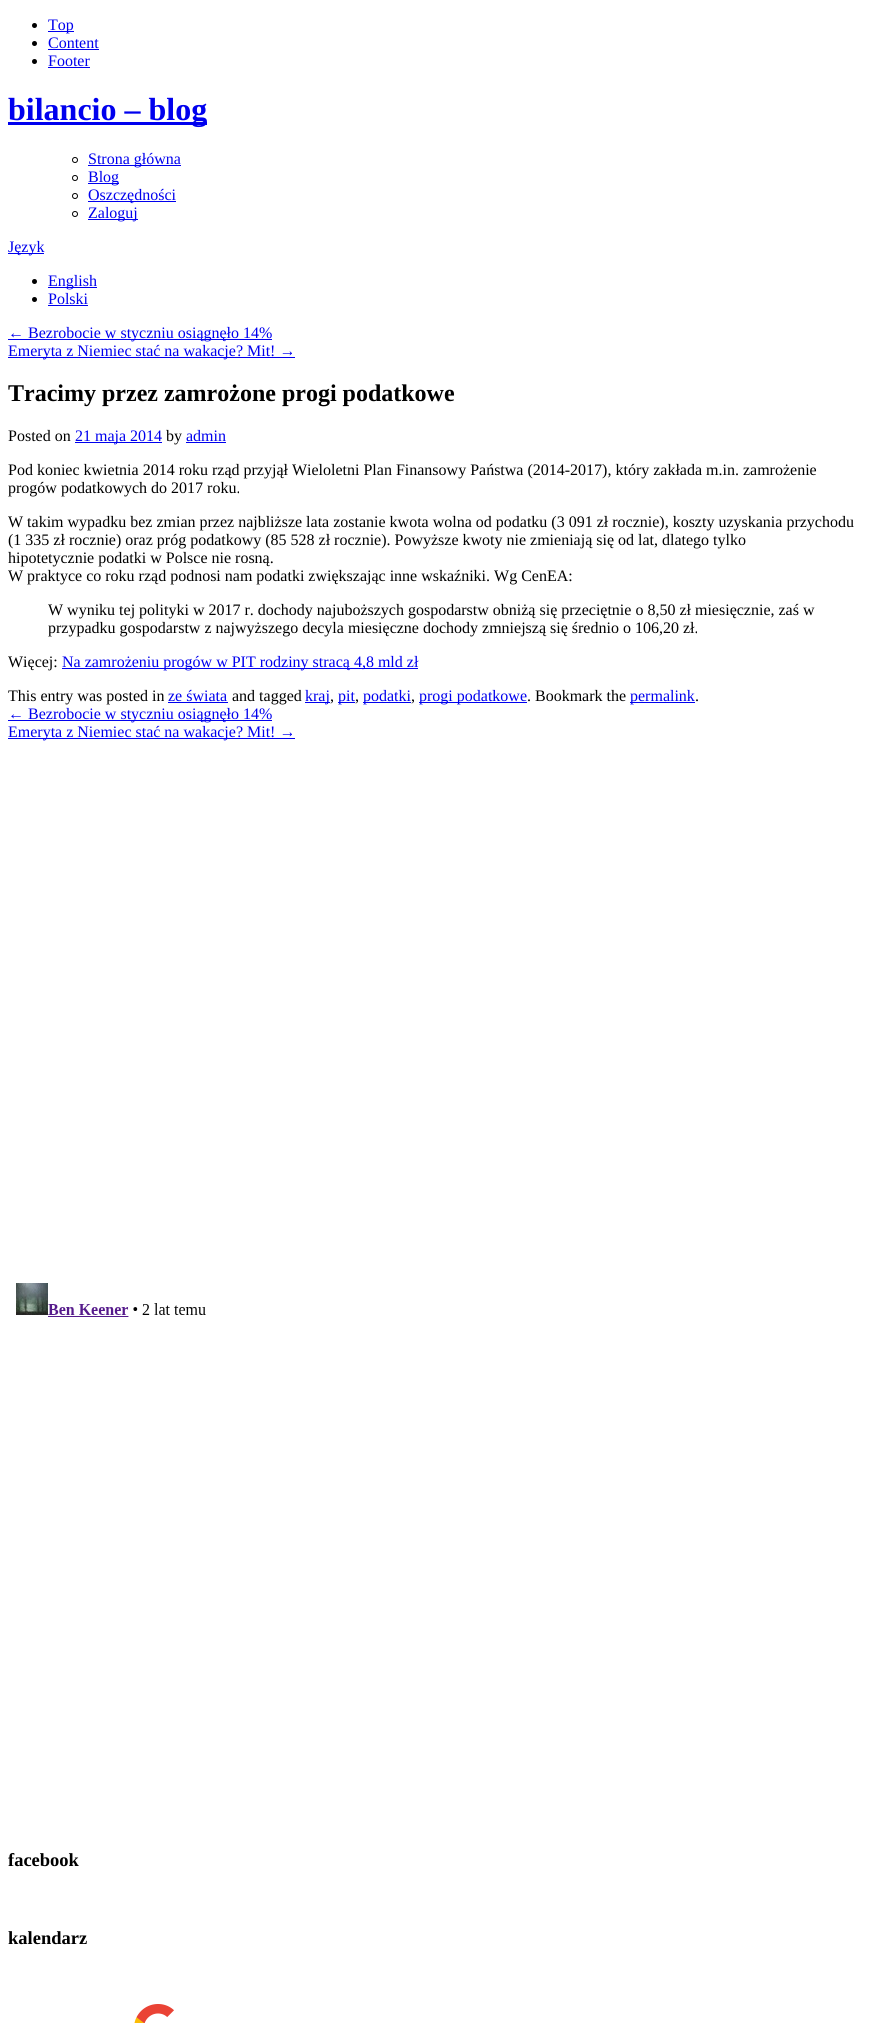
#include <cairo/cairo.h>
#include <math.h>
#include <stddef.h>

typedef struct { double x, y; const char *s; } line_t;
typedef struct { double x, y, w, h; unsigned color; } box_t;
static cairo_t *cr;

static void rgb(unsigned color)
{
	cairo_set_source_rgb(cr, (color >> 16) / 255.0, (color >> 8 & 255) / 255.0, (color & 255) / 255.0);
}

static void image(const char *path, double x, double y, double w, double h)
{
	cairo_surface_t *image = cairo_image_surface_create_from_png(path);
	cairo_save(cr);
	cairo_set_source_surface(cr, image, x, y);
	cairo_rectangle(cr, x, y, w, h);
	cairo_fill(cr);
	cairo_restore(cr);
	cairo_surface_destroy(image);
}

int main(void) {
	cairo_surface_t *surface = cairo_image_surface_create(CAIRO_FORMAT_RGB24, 877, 2023);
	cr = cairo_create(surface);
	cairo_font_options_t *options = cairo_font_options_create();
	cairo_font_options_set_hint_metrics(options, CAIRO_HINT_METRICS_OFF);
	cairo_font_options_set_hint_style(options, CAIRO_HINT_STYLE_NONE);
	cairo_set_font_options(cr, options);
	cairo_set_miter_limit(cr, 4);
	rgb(0xffffff);
	cairo_paint(cr);
	rgb(0x000000);
	cairo_arc(cr, 34.5, 25.5, 2.5, 0, 2 * M_PI);
	cairo_fill(cr);
	rgb(0x0000ee);
	cairo_rectangle(cr, 48, 31, 26, 1);
	cairo_fill(cr);
	rgb(0x000000);
	cairo_arc(cr, 34.5, 43.5, 2.5, 0, 2 * M_PI);
	cairo_fill(cr);
	rgb(0x0000ee);
	cairo_rectangle(cr, 48, 49, 51, 1);
	cairo_fill(cr);
	rgb(0x000000);
	cairo_arc(cr, 34.5, 61.5, 2.5, 0, 2 * M_PI);
	cairo_fill(cr);
	rgb(0x0000ee);
	cairo_rectangle(cr, 48, 67, 42, 1);
	cairo_fill(cr);
	cairo_rectangle(cr, 8, 122, 199, 3);
	cairo_fill(cr);
	cairo_arc(cr, 75, 160, 2.5, 0, 2 * M_PI);
	rgb(0x000000);
	cairo_set_line_width(cr, 1);
	cairo_stroke(cr);
	rgb(0x0000ee);
	cairo_rectangle(cr, 88, 165, 93, 1);
	cairo_fill(cr);
	cairo_arc(cr, 75, 178, 2.5, 0, 2 * M_PI);
	rgb(0x000000);
	cairo_stroke(cr);
	rgb(0x0000ee);
	cairo_rectangle(cr, 88, 183, 31, 1);
	cairo_fill(cr);
	cairo_arc(cr, 75, 196, 2.5, 0, 2 * M_PI);
	rgb(0x000000);
	cairo_stroke(cr);
	rgb(0x0000ee);
	cairo_rectangle(cr, 88, 201, 88, 1);
	cairo_fill(cr);
	cairo_arc(cr, 75, 214, 2.5, 0, 2 * M_PI);
	rgb(0x000000);
	cairo_stroke(cr);
	rgb(0x0000ee);
	cairo_rectangle(cr, 88, 219, 50, 1);
	cairo_fill(cr);
	cairo_rectangle(cr, 8, 253, 36, 1);
	cairo_fill(cr);
	rgb(0x000000);
	cairo_arc(cr, 34.5, 281.5, 2.5, 0, 2 * M_PI);
	cairo_fill(cr);
	rgb(0x0000ee);
	cairo_rectangle(cr, 48, 287, 49, 1);
	cairo_fill(cr);
	rgb(0x000000);
	cairo_arc(cr, 34.5, 299.5, 2.5, 0, 2 * M_PI);
	cairo_fill(cr);
	{
		static const box_t items[] = {
			{48, 305, 40, 1, 0x0000ee},
			{8, 339, 264, 1, 0x0000ee},
			{8, 357, 287, 1, 0x0000ee},
			{75, 442, 87, 1, 0x0000ee},
			{186, 442, 40, 1, 0x0000ee},
			{62, 668, 356, 1, 0x0000ee},
			{168, 702, 60, 1, 0x0000ee},
			{305, 702, 25, 1, 0x0000ee},
			{338, 702, 17, 1, 0x0000ee},
			{363, 702, 48, 1, 0x0000ee},
			{419, 702, 108, 1, 0x0000ee},
			{630, 702, 65, 1, 0x0000ee},
			{8, 720, 264, 1, 0x0000ee},
			{8, 738, 287, 1, 0x0000ee},
		};
		for (size_t i = 0; i < sizeof items / sizeof *items; i++) {
			rgb(items[i].color);
			cairo_rectangle(cr, items[i].x, items[i].y, items[i].w, items[i].h);
			cairo_fill(cr);
		}
	}
	image("img/1.png", 16, 1283, 190, 34);
	image("img/2.png", 134, 2004, 40, 19);
	cairo_select_font_face(cr, "Liberation Serif", CAIRO_FONT_SLANT_NORMAL, CAIRO_FONT_WEIGHT_NORMAL);
	cairo_set_font_size(cr, 16);
	{
		static const line_t items[] = {
			{48, 30, "Top"},
			{48, 48, "Content"},
			{48, 66, "Footer"},
		};
		for (size_t i = 0; i < sizeof items / sizeof *items; i++) {
			cairo_move_to(cr, items[i].x, items[i].y);
			cairo_show_text(cr, items[i].s);
		}
	}
	cairo_select_font_face(cr, "Liberation Serif", CAIRO_FONT_SLANT_NORMAL, CAIRO_FONT_WEIGHT_BOLD);
	cairo_set_font_size(cr, 32);
	cairo_move_to(cr, 8, 120);
	cairo_show_text(cr, "bilancio – blog");
	cairo_select_font_face(cr, "Liberation Serif", CAIRO_FONT_SLANT_NORMAL, CAIRO_FONT_WEIGHT_NORMAL);
	cairo_set_font_size(cr, 16);
	{
		static const line_t items[] = {
			{88, 164, "Strona główna"},
			{88, 182, "Blog"},
			{88, 200, "Oszczędności"},
			{88, 218, "Zaloguj"},
			{8, 252, "Język"},
			{48, 286, "English"},
			{48, 304, "Polski"},
			{8, 338, "← Bezrobocie w styczniu osiągnęło 14%"},
			{8, 356, "Emeryta z Niemiec stać na wakacje? Mit! →"},
		};
		for (size_t i = 0; i < sizeof items / sizeof *items; i++) {
			cairo_move_to(cr, items[i].x, items[i].y);
			cairo_show_text(cr, items[i].s);
		}
	}
	cairo_select_font_face(cr, "Liberation Serif", CAIRO_FONT_SLANT_NORMAL, CAIRO_FONT_WEIGHT_BOLD);
	cairo_set_font_size(cr, 24);
	rgb(0x000000);
	cairo_move_to(cr, 8, 401);
	cairo_show_text(cr, "Tracimy przez zamrożone progi podatkowe");
	cairo_select_font_face(cr, "Liberation Serif", CAIRO_FONT_SLANT_NORMAL, CAIRO_FONT_WEIGHT_NORMAL);
	cairo_set_font_size(cr, 16);
	cairo_move_to(cr, 8, 441);
	cairo_show_text(cr, "Posted on");
	rgb(0x0000ee);
	cairo_move_to(cr, 75, 441);
	cairo_show_text(cr, "21 maja 2014");
	rgb(0x000000);
	cairo_move_to(cr, 166, 441);
	cairo_show_text(cr, "by");
	rgb(0x0000ee);
	cairo_move_to(cr, 186, 441);
	cairo_show_text(cr, "admin");
	rgb(0x000000);
	{
		static const line_t items[] = {
			{8, 475, "Pod koniec kwietnia 2014 roku rząd przyjął Wieloletni Plan Finansowy Państwa (2014-2017), który zakłada m.in. zamrożenie"},
			{8, 493, "progów podatkowych do 2017 roku."},
			{8, 527, "W takim wypadku bez zmian przez najbliższe lata zostanie kwota wolna od podatku (3 091 zł rocznie), koszty uzyskania przychodu"},
			{8, 545, "(1 335 zł rocznie) oraz próg podatkowy (85 528 zł rocznie). Powyższe kwoty nie zmieniają się od lat, dlatego tylko"},
			{8, 563, "hipotetycznie podatki w Polsce nie rosną."},
			{8, 581, "W praktyce co roku rząd podnosi nam podatki zwiększając inne wskaźniki. Wg CenEA:"},
			{48, 615, "W wyniku tej polityki w 2017 r. dochody najuboższych gospodarstw obniżą się przeciętnie o 8,50 zł miesięcznie, zaś w"},
			{48, 633, "przypadku gospodarstw z najwyższego decyla miesięczne dochody zmniejszą się średnio o 106,20 zł."},
			{8, 667, "Więcej:"},
		};
		for (size_t i = 0; i < sizeof items / sizeof *items; i++) {
			cairo_move_to(cr, items[i].x, items[i].y);
			cairo_show_text(cr, items[i].s);
		}
	}
	rgb(0x0000ee);
	cairo_move_to(cr, 62, 667);
	cairo_show_text(cr, "Na zamrożeniu progów w PIT rodziny stracą 4,8 mld zł");
	rgb(0x000000);
	cairo_move_to(cr, 8, 701);
	cairo_show_text(cr, "This entry was posted in");
	rgb(0x0000ee);
	cairo_move_to(cr, 168, 701);
	cairo_show_text(cr, "ze świata");
	rgb(0x000000);
	cairo_move_to(cr, 232, 701);
	cairo_show_text(cr, "and tagged");
	rgb(0x0000ee);
	cairo_move_to(cr, 305, 701);
	cairo_show_text(cr, "kraj");
	rgb(0x000000);
	cairo_move_to(cr, 330, 701);
	cairo_show_text(cr, ",");
	rgb(0x0000ee);
	cairo_move_to(cr, 338, 701);
	cairo_show_text(cr, "pit");
	rgb(0x000000);
	cairo_move_to(cr, 355, 701);
	cairo_show_text(cr, ",");
	rgb(0x0000ee);
	cairo_move_to(cr, 363, 701);
	cairo_show_text(cr, "podatki");
	rgb(0x000000);
	cairo_move_to(cr, 411, 701);
	cairo_show_text(cr, ",");
	rgb(0x0000ee);
	cairo_move_to(cr, 419, 701);
	cairo_show_text(cr, "progi podatkowe");
	rgb(0x000000);
	cairo_move_to(cr, 527, 701);
	cairo_show_text(cr, ". Bookmark the");
	rgb(0x0000ee);
	cairo_move_to(cr, 630, 701);
	cairo_show_text(cr, "permalink");
	rgb(0x000000);
	cairo_move_to(cr, 695, 701);
	cairo_show_text(cr, ".");
	rgb(0x0000ee);
	cairo_move_to(cr, 8, 719);
	cairo_show_text(cr, "← Bezrobocie w styczniu osiągnęło 14%");
	cairo_move_to(cr, 8, 737);
	cairo_show_text(cr, "Emeryta z Niemiec stać na wakacje? Mit! →");
	cairo_select_font_face(cr, "Liberation Serif", CAIRO_FONT_SLANT_NORMAL, CAIRO_FONT_WEIGHT_BOLD);
	cairo_set_font_size(cr, 18.5);
	rgb(0x000000);
	cairo_move_to(cr, 8, 1866);
	cairo_show_text(cr, "facebook");
	cairo_move_to(cr, 8, 1944);
	cairo_show_text(cr, "kalendarz");
	cairo_surface_write_to_png(surface, "page.png");
	cairo_font_options_destroy(options);
	cairo_destroy(cr);
	cairo_surface_destroy(surface);
	return 0;
}
